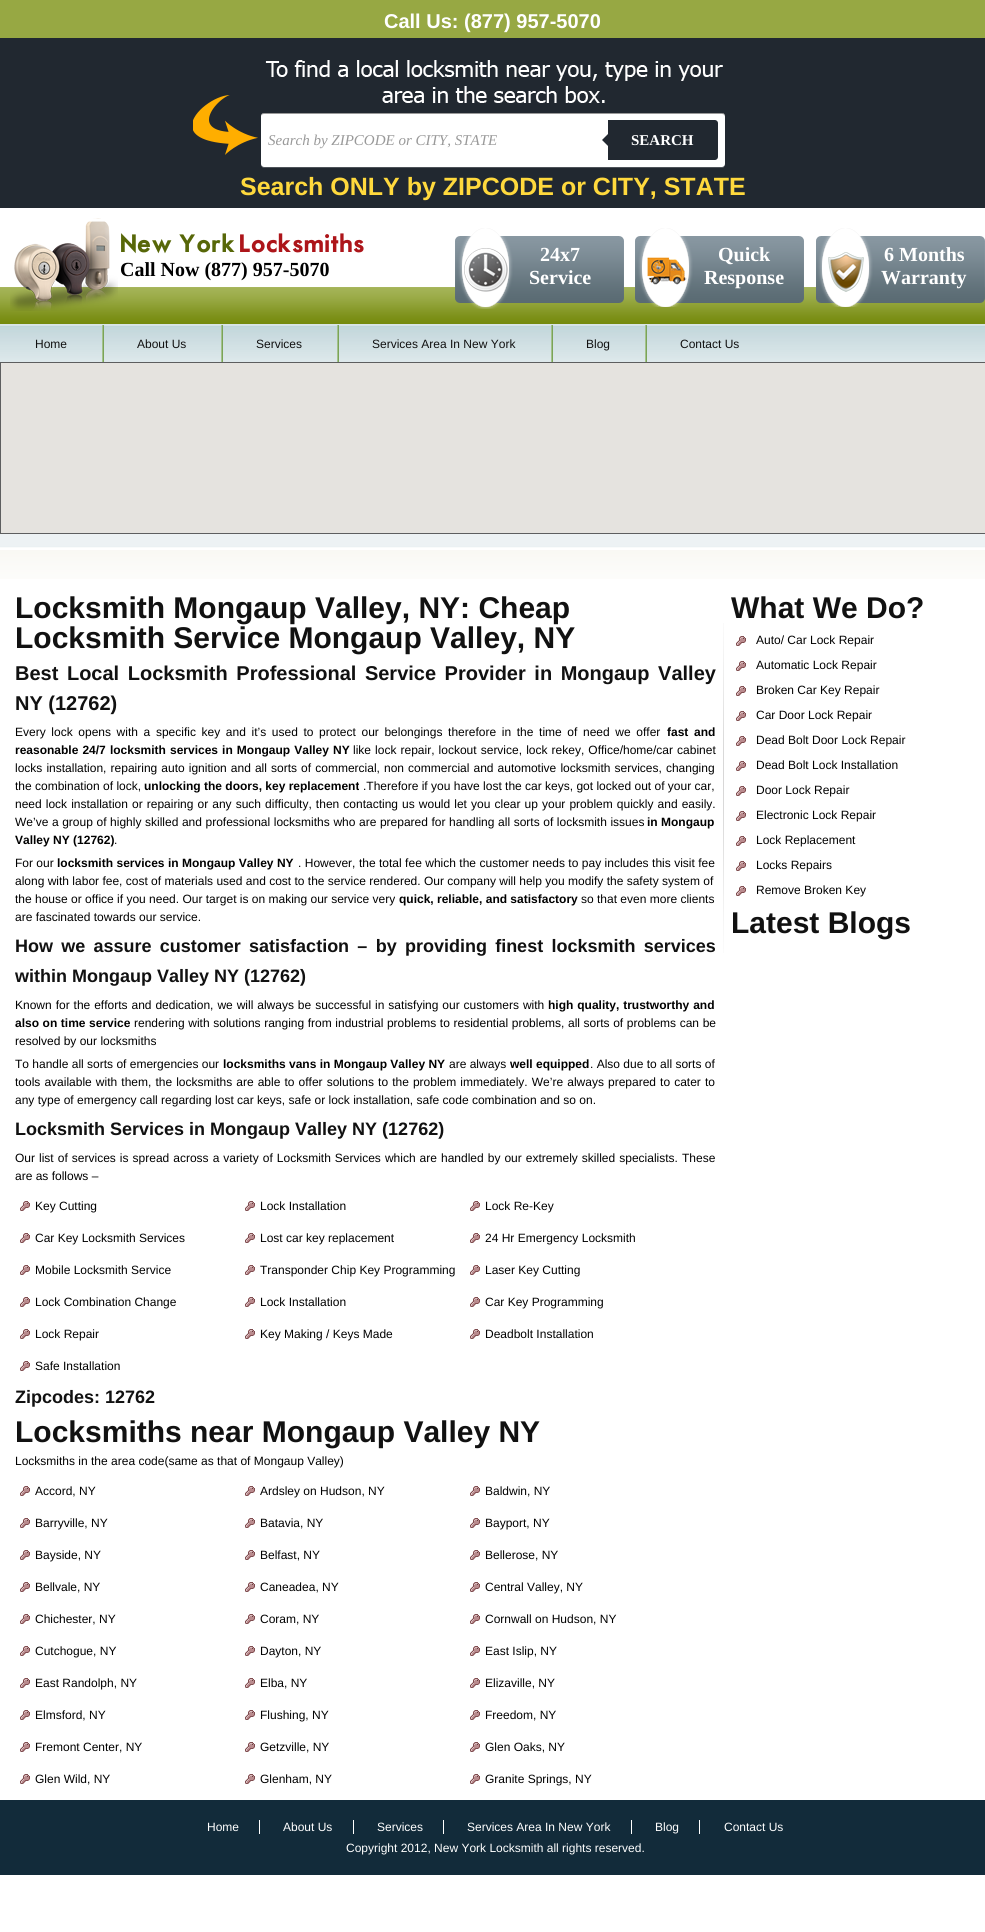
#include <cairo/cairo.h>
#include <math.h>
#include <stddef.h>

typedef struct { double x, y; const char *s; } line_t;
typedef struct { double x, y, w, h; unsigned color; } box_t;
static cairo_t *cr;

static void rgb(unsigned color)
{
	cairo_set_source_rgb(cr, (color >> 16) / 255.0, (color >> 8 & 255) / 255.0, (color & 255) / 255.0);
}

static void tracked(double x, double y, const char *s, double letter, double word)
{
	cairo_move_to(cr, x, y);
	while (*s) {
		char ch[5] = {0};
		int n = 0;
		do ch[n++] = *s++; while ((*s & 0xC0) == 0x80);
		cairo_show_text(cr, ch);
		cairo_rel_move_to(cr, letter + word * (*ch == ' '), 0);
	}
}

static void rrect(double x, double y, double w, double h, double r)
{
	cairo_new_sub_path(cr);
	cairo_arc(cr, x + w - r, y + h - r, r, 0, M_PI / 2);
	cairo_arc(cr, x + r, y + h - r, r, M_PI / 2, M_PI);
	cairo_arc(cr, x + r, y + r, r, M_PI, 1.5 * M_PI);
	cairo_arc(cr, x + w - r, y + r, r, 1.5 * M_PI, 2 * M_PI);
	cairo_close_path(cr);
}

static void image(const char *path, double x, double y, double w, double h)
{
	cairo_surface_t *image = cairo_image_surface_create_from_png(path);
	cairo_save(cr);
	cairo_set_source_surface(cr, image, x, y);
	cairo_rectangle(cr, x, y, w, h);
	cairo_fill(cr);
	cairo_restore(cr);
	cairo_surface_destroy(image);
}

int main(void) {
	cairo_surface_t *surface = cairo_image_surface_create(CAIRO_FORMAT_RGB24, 985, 1932);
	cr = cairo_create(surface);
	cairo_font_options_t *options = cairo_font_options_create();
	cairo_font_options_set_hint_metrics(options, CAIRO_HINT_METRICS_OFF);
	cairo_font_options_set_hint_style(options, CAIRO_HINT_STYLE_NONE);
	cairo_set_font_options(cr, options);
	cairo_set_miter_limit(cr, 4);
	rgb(0xffffff);
	cairo_paint(cr);
	image("img/1.png", 0, 208, 985, 371);
	rgb(0x97a843);
	cairo_rectangle(cr, 0, 0, 985, 38);
	cairo_fill(cr);
	rgb(0x212830);
	cairo_rectangle(cr, 0, 38, 985, 170);
	cairo_fill(cr);
	image("img/2.png", 193, 60, 530, 95);
	rgb(0x4d5359);
	cairo_new_path(cr);
	cairo_move_to(cr, 261, 164);
	cairo_line_to(cr, 261, 166);
	cairo_line_to(cr, 263, 168);
	cairo_line_to(cr, 722, 168);
	cairo_curve_to(cr, 724, 168, 725, 166, 725, 164);
	cairo_curve_to(cr, 725, 166, 724, 167, 722, 167);
	cairo_line_to(cr, 264, 167);
	cairo_curve_to(cr, 262, 167, 261, 166, 261, 164);
	cairo_close_path(cr);
	cairo_fill(cr);
	rgb(0xffffff);
	rrect(261, 113, 464, 54, 3);
	cairo_fill(cr);
	cairo_set_source_rgba(cr, 0, 0, 0, 0.4);
	cairo_new_path(cr);
	cairo_move_to(cr, 264, 114);
	cairo_line_to(cr, 722, 114);
	cairo_curve_to(cr, 724, 114, 725, 115, 725, 117);
	cairo_line_to(cr, 725, 115);
	cairo_line_to(cr, 723, 113);
	cairo_line_to(cr, 264, 113);
	cairo_curve_to(cr, 262, 113, 261, 115, 261, 117);
	cairo_curve_to(cr, 261, 115, 262, 114, 264, 114);
	cairo_close_path(cr);
	cairo_fill(cr);
	rgb(0x212830);
	cairo_new_path(cr);
	cairo_move_to(cr, 608, 120);
	cairo_line_to(cr, 715, 120);
	cairo_curve_to(cr, 716.5, 120, 718, 121.5, 718, 123);
	cairo_line_to(cr, 718, 157);
	cairo_curve_to(cr, 718, 158.5, 716.5, 160, 715, 160);
	cairo_line_to(cr, 608, 160);
	cairo_close_path(cr);
	cairo_fill(cr);
	cairo_new_path(cr);
	cairo_move_to(cr, 610, 132);
	cairo_line_to(cr, 610, 148);
	cairo_line_to(cr, 602, 140);
	cairo_close_path(cr);
	cairo_fill(cr);
	image("img/3.png", 10, 218, 108, 93);
	image("img/4.png", 455, 228, 169, 81);
	image("img/5.png", 635, 228, 169, 79);
	image("img/6.png", 816, 228, 169, 79);
	image("img/7.png", 102, 325, 2, 37);
	image("img/7.png", 221, 325, 2, 37);
	image("img/7.png", 337, 325, 2, 37);
	image("img/7.png", 551, 325, 2, 37);
	image("img/7.png", 645, 325, 2, 37);
	cairo_rectangle(cr, 0.5, 362.5, 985, 171);
	rgb(0x5d5e5f);
	cairo_set_line_width(cr, 1);
	cairo_stroke(cr);
	rgb(0xe5e3df);
	cairo_rectangle(cr, 1, 363, 984, 170);
	cairo_fill(cr);
	image("img/8.png", 20, 1201, 10, 10);
	image("img/8.png", 245, 1201, 10, 10);
	image("img/8.png", 470, 1201, 10, 10);
	image("img/8.png", 20, 1233, 10, 10);
	image("img/8.png", 245, 1233, 10, 10);
	image("img/8.png", 470, 1233, 10, 10);
	image("img/8.png", 20, 1265, 10, 10);
	image("img/8.png", 245, 1265, 10, 10);
	image("img/8.png", 470, 1265, 10, 10);
	image("img/8.png", 20, 1297, 10, 10);
	image("img/8.png", 245, 1297, 10, 10);
	image("img/8.png", 470, 1297, 10, 10);
	image("img/8.png", 20, 1329, 10, 10);
	image("img/8.png", 245, 1329, 10, 10);
	image("img/8.png", 470, 1329, 10, 10);
	image("img/8.png", 20, 1361, 10, 10);
	image("img/8.png", 20, 1486, 10, 10);
	image("img/8.png", 245, 1486, 10, 10);
	image("img/8.png", 470, 1486, 10, 10);
	image("img/8.png", 20, 1518, 10, 10);
	image("img/8.png", 245, 1518, 10, 10);
	image("img/8.png", 470, 1518, 10, 10);
	image("img/8.png", 20, 1550, 10, 10);
	image("img/8.png", 245, 1550, 10, 10);
	image("img/8.png", 470, 1550, 10, 10);
	image("img/8.png", 20, 1582, 10, 10);
	image("img/8.png", 245, 1582, 10, 10);
	image("img/8.png", 470, 1582, 10, 10);
	image("img/8.png", 20, 1614, 10, 10);
	image("img/8.png", 245, 1614, 10, 10);
	image("img/8.png", 470, 1614, 10, 10);
	image("img/8.png", 20, 1646, 10, 10);
	image("img/8.png", 245, 1646, 10, 10);
	image("img/8.png", 470, 1646, 10, 10);
	image("img/8.png", 20, 1678, 10, 10);
	image("img/8.png", 245, 1678, 10, 10);
	image("img/8.png", 470, 1678, 10, 10);
	image("img/8.png", 20, 1710, 10, 10);
	image("img/8.png", 245, 1710, 10, 10);
	image("img/8.png", 470, 1710, 10, 10);
	image("img/8.png", 20, 1742, 10, 10);
	image("img/8.png", 245, 1742, 10, 10);
	image("img/8.png", 470, 1742, 10, 10);
	image("img/8.png", 20, 1774, 10, 10);
	image("img/8.png", 245, 1774, 10, 10);
	image("img/8.png", 470, 1774, 10, 10);
	image("img/9.png", 723, 623, 1, 330);
	image("img/8.png", 736, 636, 10, 10);
	image("img/8.png", 736, 661, 10, 10);
	image("img/8.png", 736, 686, 10, 10);
	image("img/8.png", 736, 711, 10, 10);
	image("img/8.png", 736, 736, 10, 10);
	image("img/8.png", 736, 761, 10, 10);
	image("img/8.png", 736, 786, 10, 10);
	image("img/8.png", 736, 811, 10, 10);
	image("img/8.png", 736, 836, 10, 10);
	image("img/8.png", 736, 861, 10, 10);
	image("img/8.png", 736, 886, 10, 10);
	{
		static const box_t items[] = {
			{0, 1800, 985, 75, 0x122b3a},
			{259, 1820, 1, 14, 0xffffff},
			{353, 1820, 1, 14, 0xffffff},
			{443, 1820, 1, 14, 0xffffff},
			{631, 1820, 1, 14, 0xffffff},
			{699, 1820, 1, 14, 0xffffff},
		};
		for (size_t i = 0; i < sizeof items / sizeof *items; i++) {
			rgb(items[i].color);
			cairo_rectangle(cr, items[i].x, items[i].y, items[i].w, items[i].h);
			cairo_fill(cr);
		}
	}
	cairo_select_font_face(cr, "Liberation Sans", CAIRO_FONT_SLANT_NORMAL, CAIRO_FONT_WEIGHT_BOLD);
	cairo_set_font_size(cr, 20);
	cairo_move_to(cr, 384, 28);
	cairo_show_text(cr, "Call Us: (877) 957-5070");
	cairo_select_font_face(cr, "Liberation Serif", CAIRO_FONT_SLANT_ITALIC, CAIRO_FONT_WEIGHT_NORMAL);
	cairo_set_font_size(cr, 15);
	rgb(0x999999);
	cairo_move_to(cr, 268, 145);
	cairo_show_text(cr, "Search by ZIPCODE or CITY, STATE");
	cairo_select_font_face(cr, "Liberation Serif", CAIRO_FONT_SLANT_NORMAL, CAIRO_FONT_WEIGHT_BOLD);
	rgb(0xffffff);
	cairo_move_to(cr, 631, 145);
	cairo_show_text(cr, "SEARCH");
	cairo_select_font_face(cr, "Liberation Sans", CAIRO_FONT_SLANT_NORMAL, CAIRO_FONT_WEIGHT_BOLD);
	cairo_set_font_size(cr, 25);
	rgb(0xffd93d);
	cairo_move_to(cr, 240, 195);
	cairo_show_text(cr, "Search ONLY by ZIPCODE or CITY, STATE");
	cairo_select_font_face(cr, "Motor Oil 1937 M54", CAIRO_FONT_SLANT_NORMAL, CAIRO_FONT_WEIGHT_NORMAL);
	cairo_set_font_size(cr, 24);
	rgb(0x576708);
	cairo_move_to(cr, 120, 252);
	cairo_show_text(cr, "New York");
	rgb(0xad151a);
	cairo_move_to(cr, 239, 252);
	cairo_show_text(cr, "Locksmiths");
	cairo_select_font_face(cr, "Liberation Serif", CAIRO_FONT_SLANT_NORMAL, CAIRO_FONT_WEIGHT_BOLD);
	cairo_set_font_size(cr, 20);
	rgb(0x000000);
	cairo_move_to(cr, 120, 276);
	cairo_show_text(cr, "Call Now (877) 957-5070");
	rgb(0xffffff);
	{
		static const line_t items[] = {
			{540, 261, "24x7"},
			{529, 284, "Service"},
			{718, 261, "Quick"},
			{704, 284, "Response"},
			{884, 261, "6 Months"},
			{881, 284, "Warranty"},
		};
		for (size_t i = 0; i < sizeof items / sizeof *items; i++) {
			cairo_move_to(cr, items[i].x, items[i].y);
			cairo_show_text(cr, items[i].s);
		}
	}
	cairo_select_font_face(cr, "Liberation Sans", CAIRO_FONT_SLANT_NORMAL, CAIRO_FONT_WEIGHT_NORMAL);
	cairo_set_font_size(cr, 12);
	rgb(0x111111);
	{
		static const line_t items[] = {
			{35, 348, "Home"},
			{137, 348, "About Us"},
			{256, 348, "Services"},
			{372, 348, "Services Area In New York"},
			{586, 348, "Blog"},
			{680, 348, "Contact Us"},
		};
		for (size_t i = 0; i < sizeof items / sizeof *items; i++) {
			cairo_move_to(cr, items[i].x, items[i].y);
			cairo_show_text(cr, items[i].s);
		}
	}
	cairo_select_font_face(cr, "Liberation Sans", CAIRO_FONT_SLANT_NORMAL, CAIRO_FONT_WEIGHT_BOLD);
	cairo_set_font_size(cr, 30);
	cairo_move_to(cr, 15, 618);
	cairo_show_text(cr, "Locksmith Mongaup Valley, NY: Cheap");
	cairo_move_to(cr, 15, 648);
	cairo_show_text(cr, "Locksmith Service Mongaup Valley, NY");
	cairo_set_font_size(cr, 20);
	tracked(15, 680, "Best Local Locksmith Professional Service Provider in Mongaup Valley", 0, 3);
	cairo_move_to(cr, 15, 710);
	cairo_show_text(cr, "NY (12762)");
	cairo_select_font_face(cr, "Liberation Sans", CAIRO_FONT_SLANT_NORMAL, CAIRO_FONT_WEIGHT_NORMAL);
	cairo_set_font_size(cr, 12);
	rgb(0x000000);
	tracked(15, 736, "Every lock opens with a specific key and it’s used to protect our belongings therefore in the time of need we offer", 0, 2.3);
	cairo_select_font_face(cr, "Liberation Sans", CAIRO_FONT_SLANT_NORMAL, CAIRO_FONT_WEIGHT_BOLD);
	tracked(667, 736, "fast and", 0, 2.3);
	tracked(15, 754, "reasonable 24/7 locksmith services in Mongaup Valley NY", 0, 0.75);
	cairo_select_font_face(cr, "Liberation Sans", CAIRO_FONT_SLANT_NORMAL, CAIRO_FONT_WEIGHT_NORMAL);
	tracked(353, 754, "like lock repair, lockout service, lock rekey, Office/home/car cabinet", 0, 0.75);
	tracked(15, 772, "locks installation, repairing auto ignition and all sorts of commercial, non commercial and automotive locksmith services, changing", 0, 0.75);
	cairo_move_to(cr, 15, 790);
	cairo_show_text(cr, "the combination of lock,");
	cairo_select_font_face(cr, "Liberation Sans", CAIRO_FONT_SLANT_NORMAL, CAIRO_FONT_WEIGHT_BOLD);
	cairo_move_to(cr, 144, 790);
	cairo_show_text(cr, "unlocking the doors, key replacement");
	cairo_select_font_face(cr, "Liberation Sans", CAIRO_FONT_SLANT_NORMAL, CAIRO_FONT_WEIGHT_NORMAL);
	cairo_move_to(cr, 363, 790);
	cairo_show_text(cr, ".Therefore if you have lost the car keys, got locked out of your car,");
	tracked(15, 808, "need lock installation or repairing or any such difficulty, then contacting us would let you clear up your problem quickly and easily.", 0, 0.75);
	tracked(15, 826, "We’ve a group of highly skilled and professional locksmiths who are prepared for handling all sorts of locksmith issues", 0, 0.25);
	cairo_select_font_face(cr, "Liberation Sans", CAIRO_FONT_SLANT_NORMAL, CAIRO_FONT_WEIGHT_BOLD);
	cairo_move_to(cr, 647, 826);
	cairo_show_text(cr, "in Mongaup");
	cairo_move_to(cr, 15, 844);
	cairo_show_text(cr, "Valley NY (12762)");
	cairo_select_font_face(cr, "Liberation Sans", CAIRO_FONT_SLANT_NORMAL, CAIRO_FONT_WEIGHT_NORMAL);
	cairo_move_to(cr, 114, 844);
	cairo_show_text(cr, ".");
	cairo_move_to(cr, 15, 867);
	cairo_show_text(cr, "For our");
	cairo_select_font_face(cr, "Liberation Sans", CAIRO_FONT_SLANT_NORMAL, CAIRO_FONT_WEIGHT_BOLD);
	tracked(57, 867, "locksmith services in Mongaup Valley NY", 0, 0.1);
	cairo_select_font_face(cr, "Liberation Sans", CAIRO_FONT_SLANT_NORMAL, CAIRO_FONT_WEIGHT_NORMAL);
	tracked(298, 867, ". However, the total fee which the customer needs to pay includes this visit fee", 0, 0.1);
	cairo_move_to(cr, 15, 885);
	cairo_show_text(cr, "along with labor fee, cost of materials used and cost to the service rendered. Our company will help you modify the safety system of");
	cairo_move_to(cr, 15, 903);
	cairo_show_text(cr, "the house or office if you need. Our target is on making our service very");
	cairo_select_font_face(cr, "Liberation Sans", CAIRO_FONT_SLANT_NORMAL, CAIRO_FONT_WEIGHT_BOLD);
	cairo_move_to(cr, 399, 903);
	cairo_show_text(cr, "quick, reliable, and satisfactory");
	cairo_select_font_face(cr, "Liberation Sans", CAIRO_FONT_SLANT_NORMAL, CAIRO_FONT_WEIGHT_NORMAL);
	cairo_move_to(cr, 581, 903);
	cairo_show_text(cr, "so that even more clients");
	cairo_move_to(cr, 15, 921);
	cairo_show_text(cr, "are fascinated towards our service.");
	cairo_select_font_face(cr, "Liberation Sans", CAIRO_FONT_SLANT_NORMAL, CAIRO_FONT_WEIGHT_BOLD);
	cairo_set_font_size(cr, 18);
	rgb(0x111111);
	tracked(15, 952, "How we assure customer satisfaction – by providing finest locksmith services", 0, 3.25);
	cairo_move_to(cr, 15, 982);
	cairo_show_text(cr, "within Mongaup Valley NY (12762)");
	cairo_select_font_face(cr, "Liberation Sans", CAIRO_FONT_SLANT_NORMAL, CAIRO_FONT_WEIGHT_NORMAL);
	cairo_set_font_size(cr, 12);
	rgb(0x000000);
	tracked(15, 1009, "Known for the efforts and dedication, we will always be successful in satisfying our customers with", 0, 0.6);
	cairo_select_font_face(cr, "Liberation Sans", CAIRO_FONT_SLANT_NORMAL, CAIRO_FONT_WEIGHT_BOLD);
	tracked(548, 1009, "high quality, trustworthy and", 0, 0.6);
	tracked(15, 1027, "also on time service", 0, 0.25);
	cairo_select_font_face(cr, "Liberation Sans", CAIRO_FONT_SLANT_NORMAL, CAIRO_FONT_WEIGHT_NORMAL);
	tracked(134, 1027, "rendering with solutions ranging from industrial problems to residential problems, all sorts of problems can be", 0, 0.25);
	cairo_move_to(cr, 15, 1045);
	cairo_show_text(cr, "resolved by our locksmiths");
	cairo_move_to(cr, 15, 1068);
	cairo_show_text(cr, "To handle all sorts of emergencies our");
	cairo_select_font_face(cr, "Liberation Sans", CAIRO_FONT_SLANT_NORMAL, CAIRO_FONT_WEIGHT_BOLD);
	cairo_move_to(cr, 223, 1068);
	cairo_show_text(cr, "locksmiths vans in Mongaup Valley NY");
	cairo_select_font_face(cr, "Liberation Sans", CAIRO_FONT_SLANT_NORMAL, CAIRO_FONT_WEIGHT_NORMAL);
	cairo_move_to(cr, 449, 1068);
	cairo_show_text(cr, "are always");
	cairo_select_font_face(cr, "Liberation Sans", CAIRO_FONT_SLANT_NORMAL, CAIRO_FONT_WEIGHT_BOLD);
	cairo_move_to(cr, 510, 1068);
	cairo_show_text(cr, "well equipped");
	cairo_select_font_face(cr, "Liberation Sans", CAIRO_FONT_SLANT_NORMAL, CAIRO_FONT_WEIGHT_NORMAL);
	cairo_move_to(cr, 590, 1068);
	cairo_show_text(cr, ". Also due to all sorts of");
	tracked(15, 1086, "tools available with them, the locksmiths are able to offer solutions to the problem immediately. We’re always prepared to cater to", 0, 0.75);
	cairo_move_to(cr, 15, 1104);
	cairo_show_text(cr, "any type of emergency call regarding lost car keys, safe or lock installation, safe code combination and so on.");
	cairo_select_font_face(cr, "Liberation Sans", CAIRO_FONT_SLANT_NORMAL, CAIRO_FONT_WEIGHT_BOLD);
	cairo_set_font_size(cr, 18);
	rgb(0x111111);
	cairo_move_to(cr, 15, 1135);
	cairo_show_text(cr, "Locksmith Services in Mongaup Valley NY (12762)");
	cairo_select_font_face(cr, "Liberation Sans", CAIRO_FONT_SLANT_NORMAL, CAIRO_FONT_WEIGHT_NORMAL);
	cairo_set_font_size(cr, 12);
	rgb(0x000000);
	tracked(15, 1162, "Our list of services is spread across a variety of Locksmith Services which are handled by our extremely skilled specialists. These", 0, 0.7);
	{
		static const line_t items[] = {
			{15, 1180, "are as follows –"},
			{35, 1210, "Key Cutting"},
			{260, 1210, "Lock Installation"},
			{485, 1210, "Lock Re-Key"},
			{35, 1242, "Car Key Locksmith Services"},
			{260, 1242, "Lost car key replacement"},
			{485, 1242, "24 Hr Emergency Locksmith"},
			{35, 1274, "Mobile Locksmith Service"},
			{260, 1274, "Transponder Chip Key Programming"},
			{485, 1274, "Laser Key Cutting"},
			{35, 1306, "Lock Combination Change"},
			{260, 1306, "Lock Installation"},
			{485, 1306, "Car Key Programming"},
			{35, 1338, "Lock Repair"},
			{260, 1338, "Key Making / Keys Made"},
			{485, 1338, "Deadbolt Installation"},
			{35, 1370, "Safe Installation"},
		};
		for (size_t i = 0; i < sizeof items / sizeof *items; i++) {
			cairo_move_to(cr, items[i].x, items[i].y);
			cairo_show_text(cr, items[i].s);
		}
	}
	cairo_select_font_face(cr, "Liberation Sans", CAIRO_FONT_SLANT_NORMAL, CAIRO_FONT_WEIGHT_BOLD);
	cairo_set_font_size(cr, 18);
	rgb(0x111111);
	cairo_move_to(cr, 15, 1403);
	cairo_show_text(cr, "Zipcodes: 12762");
	cairo_set_font_size(cr, 30);
	cairo_move_to(cr, 15, 1442);
	cairo_show_text(cr, "Locksmiths near Mongaup Valley NY");
	cairo_select_font_face(cr, "Liberation Sans", CAIRO_FONT_SLANT_NORMAL, CAIRO_FONT_WEIGHT_NORMAL);
	cairo_set_font_size(cr, 12);
	rgb(0x000000);
	{
		static const line_t items[] = {
			{15, 1465, "Locksmiths in the area code(same as that of Mongaup Valley)"},
			{35, 1495, "Accord, NY"},
			{260, 1495, "Ardsley on Hudson, NY"},
			{485, 1495, "Baldwin, NY"},
			{35, 1527, "Barryville, NY"},
			{260, 1527, "Batavia, NY"},
			{485, 1527, "Bayport, NY"},
			{35, 1559, "Bayside, NY"},
			{260, 1559, "Belfast, NY"},
			{485, 1559, "Bellerose, NY"},
			{35, 1591, "Bellvale, NY"},
			{260, 1591, "Caneadea, NY"},
			{485, 1591, "Central Valley, NY"},
			{35, 1623, "Chichester, NY"},
			{260, 1623, "Coram, NY"},
			{485, 1623, "Cornwall on Hudson, NY"},
			{35, 1655, "Cutchogue, NY"},
			{260, 1655, "Dayton, NY"},
			{485, 1655, "East Islip, NY"},
			{35, 1687, "East Randolph, NY"},
			{260, 1687, "Elba, NY"},
			{485, 1687, "Elizaville, NY"},
			{35, 1719, "Elmsford, NY"},
			{260, 1719, "Flushing, NY"},
			{485, 1719, "Freedom, NY"},
			{35, 1751, "Fremont Center, NY"},
			{260, 1751, "Getzville, NY"},
			{485, 1751, "Glen Oaks, NY"},
			{35, 1783, "Glen Wild, NY"},
			{260, 1783, "Glenham, NY"},
			{485, 1783, "Granite Springs, NY"},
		};
		for (size_t i = 0; i < sizeof items / sizeof *items; i++) {
			cairo_move_to(cr, items[i].x, items[i].y);
			cairo_show_text(cr, items[i].s);
		}
	}
	cairo_select_font_face(cr, "Liberation Sans", CAIRO_FONT_SLANT_NORMAL, CAIRO_FONT_WEIGHT_BOLD);
	cairo_set_font_size(cr, 30);
	rgb(0x111111);
	cairo_move_to(cr, 731, 618);
	cairo_show_text(cr, "What We Do?");
	cairo_select_font_face(cr, "Liberation Sans", CAIRO_FONT_SLANT_NORMAL, CAIRO_FONT_WEIGHT_NORMAL);
	cairo_set_font_size(cr, 12);
	rgb(0x000000);
	{
		static const line_t items[] = {
			{756, 644, "Auto/ Car Lock Repair"},
			{756, 669, "Automatic Lock Repair"},
			{756, 694, "Broken Car Key Repair"},
			{756, 719, "Car Door Lock Repair"},
			{756, 744, "Dead Bolt Door Lock Repair"},
			{756, 769, "Dead Bolt Lock Installation"},
			{756, 794, "Door Lock Repair"},
			{756, 819, "Electronic Lock Repair"},
			{756, 844, "Lock Replacement"},
			{756, 869, "Locks Repairs"},
			{756, 894, "Remove Broken Key"},
		};
		for (size_t i = 0; i < sizeof items / sizeof *items; i++) {
			cairo_move_to(cr, items[i].x, items[i].y);
			cairo_show_text(cr, items[i].s);
		}
	}
	cairo_select_font_face(cr, "Liberation Sans", CAIRO_FONT_SLANT_NORMAL, CAIRO_FONT_WEIGHT_BOLD);
	cairo_set_font_size(cr, 30);
	rgb(0x111111);
	cairo_move_to(cr, 731, 933);
	cairo_show_text(cr, "Latest Blogs");
	cairo_select_font_face(cr, "Liberation Sans", CAIRO_FONT_SLANT_NORMAL, CAIRO_FONT_WEIGHT_NORMAL);
	cairo_set_font_size(cr, 12);
	rgb(0xffffff);
	{
		static const line_t items[] = {
			{207, 1831, "Home"},
			{283, 1831, "About Us"},
			{377, 1831, "Services"},
			{467, 1831, "Services Area In New York"},
			{655, 1831, "Blog"},
			{724, 1831, "Contact Us"},
			{346, 1852, "Copyright 2012, New York Locksmith all rights reserved."},
		};
		for (size_t i = 0; i < sizeof items / sizeof *items; i++) {
			cairo_move_to(cr, items[i].x, items[i].y);
			cairo_show_text(cr, items[i].s);
		}
	}
	cairo_surface_write_to_png(surface, "page.png");
	cairo_font_options_destroy(options);
	cairo_destroy(cr);
	cairo_surface_destroy(surface);
	return 0;
}
